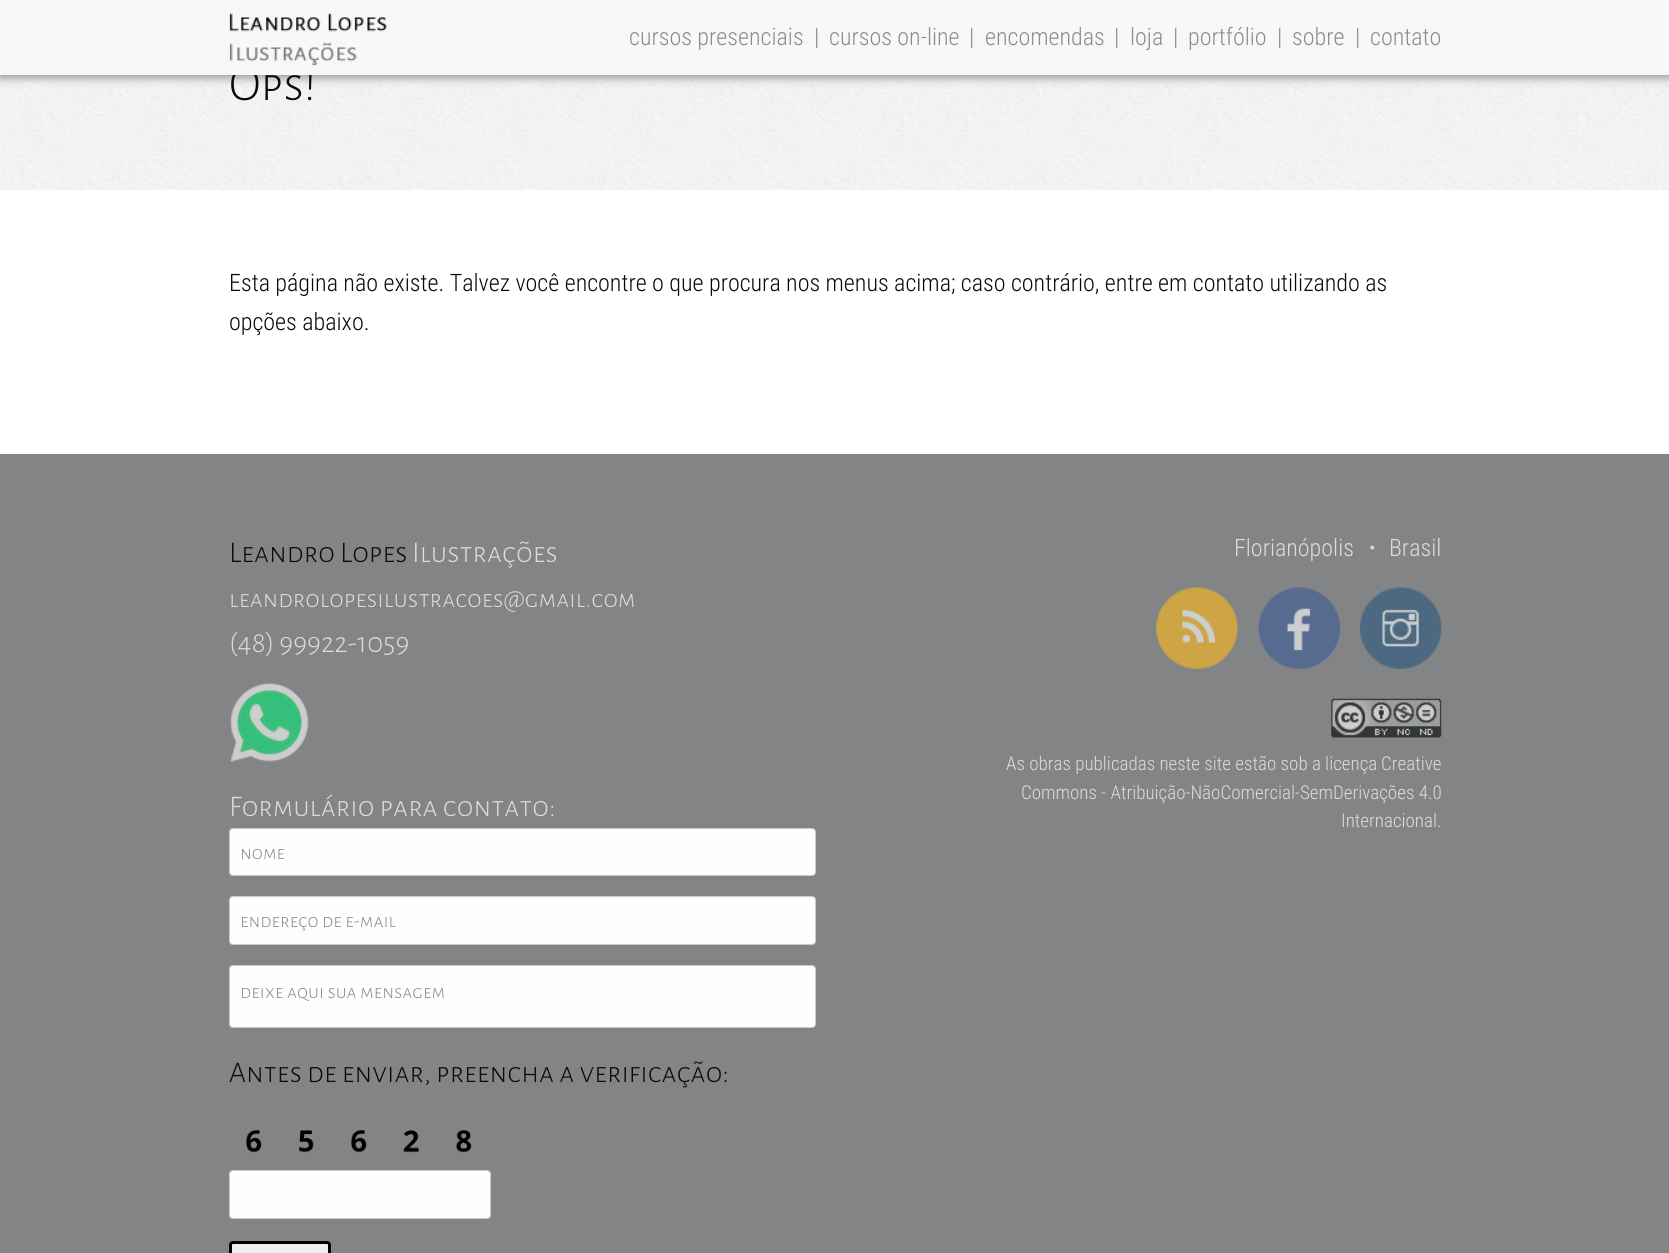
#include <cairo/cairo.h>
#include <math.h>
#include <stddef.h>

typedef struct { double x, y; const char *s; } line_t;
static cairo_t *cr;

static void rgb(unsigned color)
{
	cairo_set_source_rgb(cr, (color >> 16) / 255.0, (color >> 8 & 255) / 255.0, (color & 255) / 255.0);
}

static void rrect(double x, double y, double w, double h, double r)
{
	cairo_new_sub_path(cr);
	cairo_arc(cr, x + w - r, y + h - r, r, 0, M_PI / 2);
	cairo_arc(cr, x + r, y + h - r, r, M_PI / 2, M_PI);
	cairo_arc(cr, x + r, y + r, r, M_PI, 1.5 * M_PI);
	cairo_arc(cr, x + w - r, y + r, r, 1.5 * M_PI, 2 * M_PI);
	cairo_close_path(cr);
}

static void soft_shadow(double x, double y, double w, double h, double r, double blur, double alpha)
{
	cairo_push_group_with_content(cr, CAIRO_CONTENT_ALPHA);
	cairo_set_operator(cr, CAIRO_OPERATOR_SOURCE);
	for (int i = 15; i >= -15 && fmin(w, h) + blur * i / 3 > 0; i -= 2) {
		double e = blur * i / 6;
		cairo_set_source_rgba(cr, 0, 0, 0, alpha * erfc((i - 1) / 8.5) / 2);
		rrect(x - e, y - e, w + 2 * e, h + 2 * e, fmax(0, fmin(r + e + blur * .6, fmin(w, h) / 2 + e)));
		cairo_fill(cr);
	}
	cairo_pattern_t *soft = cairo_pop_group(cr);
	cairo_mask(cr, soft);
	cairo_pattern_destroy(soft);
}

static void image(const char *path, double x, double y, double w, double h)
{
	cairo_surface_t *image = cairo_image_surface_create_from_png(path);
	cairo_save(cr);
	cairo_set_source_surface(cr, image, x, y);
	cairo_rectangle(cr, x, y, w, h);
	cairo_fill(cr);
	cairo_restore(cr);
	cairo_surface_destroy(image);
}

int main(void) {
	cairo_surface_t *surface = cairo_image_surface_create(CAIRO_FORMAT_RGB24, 1669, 1253);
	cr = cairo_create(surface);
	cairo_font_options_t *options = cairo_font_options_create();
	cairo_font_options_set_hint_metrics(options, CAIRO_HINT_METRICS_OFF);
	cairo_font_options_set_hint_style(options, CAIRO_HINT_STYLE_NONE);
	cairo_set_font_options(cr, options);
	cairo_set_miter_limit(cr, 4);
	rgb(0xffffff);
	cairo_paint(cr);
	image("img/2.png", 0, 75, 1669, 115);
	rgb(0x969797);
	soft_shadow(0, 3, 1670, 75, 0, 4.5, 1);
	rgb(0x828485);
	cairo_rectangle(cr, 0, 454, 1669, 799);
	cairo_fill(cr);
	image("img/3.png", 230, 683, 79, 79);
	rgb(0xfefefe);
	rrect(229.5, 828.5, 586, 47, 3.5);
	cairo_fill_preserve(cr);
	rgb(0xcacaca);
	cairo_set_line_width(cr, 1);
	cairo_stroke(cr);
	rgb(0xfefefe);
	rrect(229.5, 896.5, 586, 48, 3.5);
	cairo_fill_preserve(cr);
	rgb(0xcacaca);
	cairo_stroke(cr);
	rgb(0xfefefe);
	rrect(229.5, 965.5, 586, 62, 3.5);
	cairo_fill_preserve(cr);
	rgb(0xcacaca);
	cairo_stroke(cr);
	image("img/4.png", 246, 1130, 16, 23);
	image("img/5.png", 299, 1130, 15, 23);
	image("img/6.png", 351, 1130, 16, 23);
	image("img/7.png", 403, 1130, 16, 23);
	image("img/8.png", 456, 1130, 16, 23);
	rgb(0xfefefe);
	rrect(229.5, 1170.5, 261, 48, 3.5);
	cairo_fill_preserve(cr);
	rgb(0xcacaca);
	cairo_stroke(cr);
	rgb(0xefefef);
	rrect(230.5, 1242.5, 99, 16, 2.5);
	cairo_fill_preserve(cr);
	rgb(0x000000);
	cairo_set_line_width(cr, 3);
	cairo_stroke(cr);
	image("img/9.png", 1156, 587, 82, 82);
	image("img/10.png", 1258, 587, 82, 82);
	image("img/11.png", 1360, 587, 82, 82);
	image("img/12.png", 1331, 698, 111, 40);
	cairo_select_font_face(cr, "Alegreya Sans SC Light", CAIRO_FONT_SLANT_NORMAL, CAIRO_FONT_WEIGHT_NORMAL);
	cairo_set_font_size(cr, 50);
	rgb(0x0a0a0a);
	cairo_move_to(cr, 229, 100);
	cairo_show_text(cr, "Ops!");
	rgb(0xf8f8f8);
	cairo_rectangle(cr, 0, 0, 1669, 75);
	cairo_fill(cr);
	cairo_select_font_face(cr, "Roboto Condensed Light", CAIRO_FONT_SLANT_NORMAL, CAIRO_FONT_WEIGHT_NORMAL);
	cairo_set_font_size(cr, 24);
	rgb(0x8b8c8e);
	{
		static const line_t items[] = {
			{1370, 45, "contato"},
			{1355, 45, "|"},
			{1292, 45, "sobre"},
			{1277, 45, "|"},
			{1188, 45, "portfólio"},
			{1173, 45, "|"},
			{1130, 45, "loja"},
			{1114, 45, "|"},
			{985, 45, "encomendas"},
			{969, 45, "|"},
			{829, 45, "cursos on-line"},
			{814, 45, "|"},
			{629, 45, "cursos presenciais"},
		};
		for (size_t i = 0; i < sizeof items / sizeof *items; i++) {
			cairo_move_to(cr, items[i].x, items[i].y);
			cairo_show_text(cr, items[i].s);
		}
	}
	image("img/1.png", 229, 13, 158, 53);
	rgb(0x0a0a0a);
	cairo_move_to(cr, 229, 291);
	cairo_show_text(cr, "Esta página não existe. Talvez você encontre o que procura nos menus acima; caso contrário, entre em contato utilizando as");
	cairo_move_to(cr, 229, 330);
	cairo_show_text(cr, "opções abaixo.");
	cairo_select_font_face(cr, "Alegreya Sans SC Light", CAIRO_FONT_SLANT_NORMAL, CAIRO_FONT_WEIGHT_NORMAL);
	cairo_set_font_size(cr, 30);
	cairo_move_to(cr, 229, 562);
	cairo_show_text(cr, "Leandro Lopes");
	rgb(0xdadcdf);
	cairo_move_to(cr, 412, 562);
	cairo_show_text(cr, "Ilustrações");
	cairo_set_font_size(cr, 26);
	cairo_move_to(cr, 229, 607);
	cairo_show_text(cr, "leandrolopesilustracoes@gmail.com");
	cairo_set_font_size(cr, 30);
	cairo_move_to(cr, 229, 652);
	cairo_show_text(cr, "(48) 99922-1059");
	cairo_move_to(cr, 229, 816);
	cairo_show_text(cr, "Formulário para contato:");
	cairo_set_font_size(cr, 20);
	rgb(0x8b8c8e);
	{
		static const line_t items[] = {
			{240, 859, "nome"},
			{240, 927, "endereço de e-mail"},
			{240, 998, "deixe aqui sua mensagem"},
		};
		for (size_t i = 0; i < sizeof items / sizeof *items; i++) {
			cairo_move_to(cr, items[i].x, items[i].y);
			cairo_show_text(cr, items[i].s);
		}
	}
	cairo_set_font_size(cr, 30);
	rgb(0x0a0a0a);
	cairo_move_to(cr, 229, 1082);
	cairo_show_text(cr, "Antes de enviar, preencha a verificação:");
	cairo_select_font_face(cr, "Roboto Condensed Light", CAIRO_FONT_SLANT_NORMAL, CAIRO_FONT_WEIGHT_NORMAL);
	cairo_set_font_size(cr, 24);
	rgb(0xdadcdf);
	cairo_move_to(cr, 1234, 556);
	cairo_show_text(cr, "Florianópolis");
	cairo_select_font_face(cr, "WenQuanYi Zen Hei Medium", CAIRO_FONT_SLANT_NORMAL, CAIRO_FONT_WEIGHT_NORMAL);
	cairo_move_to(cr, 1360, 556);
	cairo_show_text(cr, "・");
	cairo_select_font_face(cr, "Roboto Condensed Light", CAIRO_FONT_SLANT_NORMAL, CAIRO_FONT_WEIGHT_NORMAL);
	cairo_move_to(cr, 1389, 556);
	cairo_show_text(cr, "Brasil");
	cairo_set_font_size(cr, 19);
	{
		static const line_t items[] = {
			{1006, 770, "As obras publicadas neste site estão sob a licença"},
			{1381, 770, "Creative"},
			{1021, 799, "Commons - Atribuição-NãoComercial-SemDerivações 4.0"},
			{1341, 827, "Internacional."},
		};
		for (size_t i = 0; i < sizeof items / sizeof *items; i++) {
			cairo_move_to(cr, items[i].x, items[i].y);
			cairo_show_text(cr, items[i].s);
		}
	}
	cairo_surface_write_to_png(surface, "page.png");
	cairo_font_options_destroy(options);
	cairo_destroy(cr);
	cairo_surface_destroy(surface);
	return 0;
}
